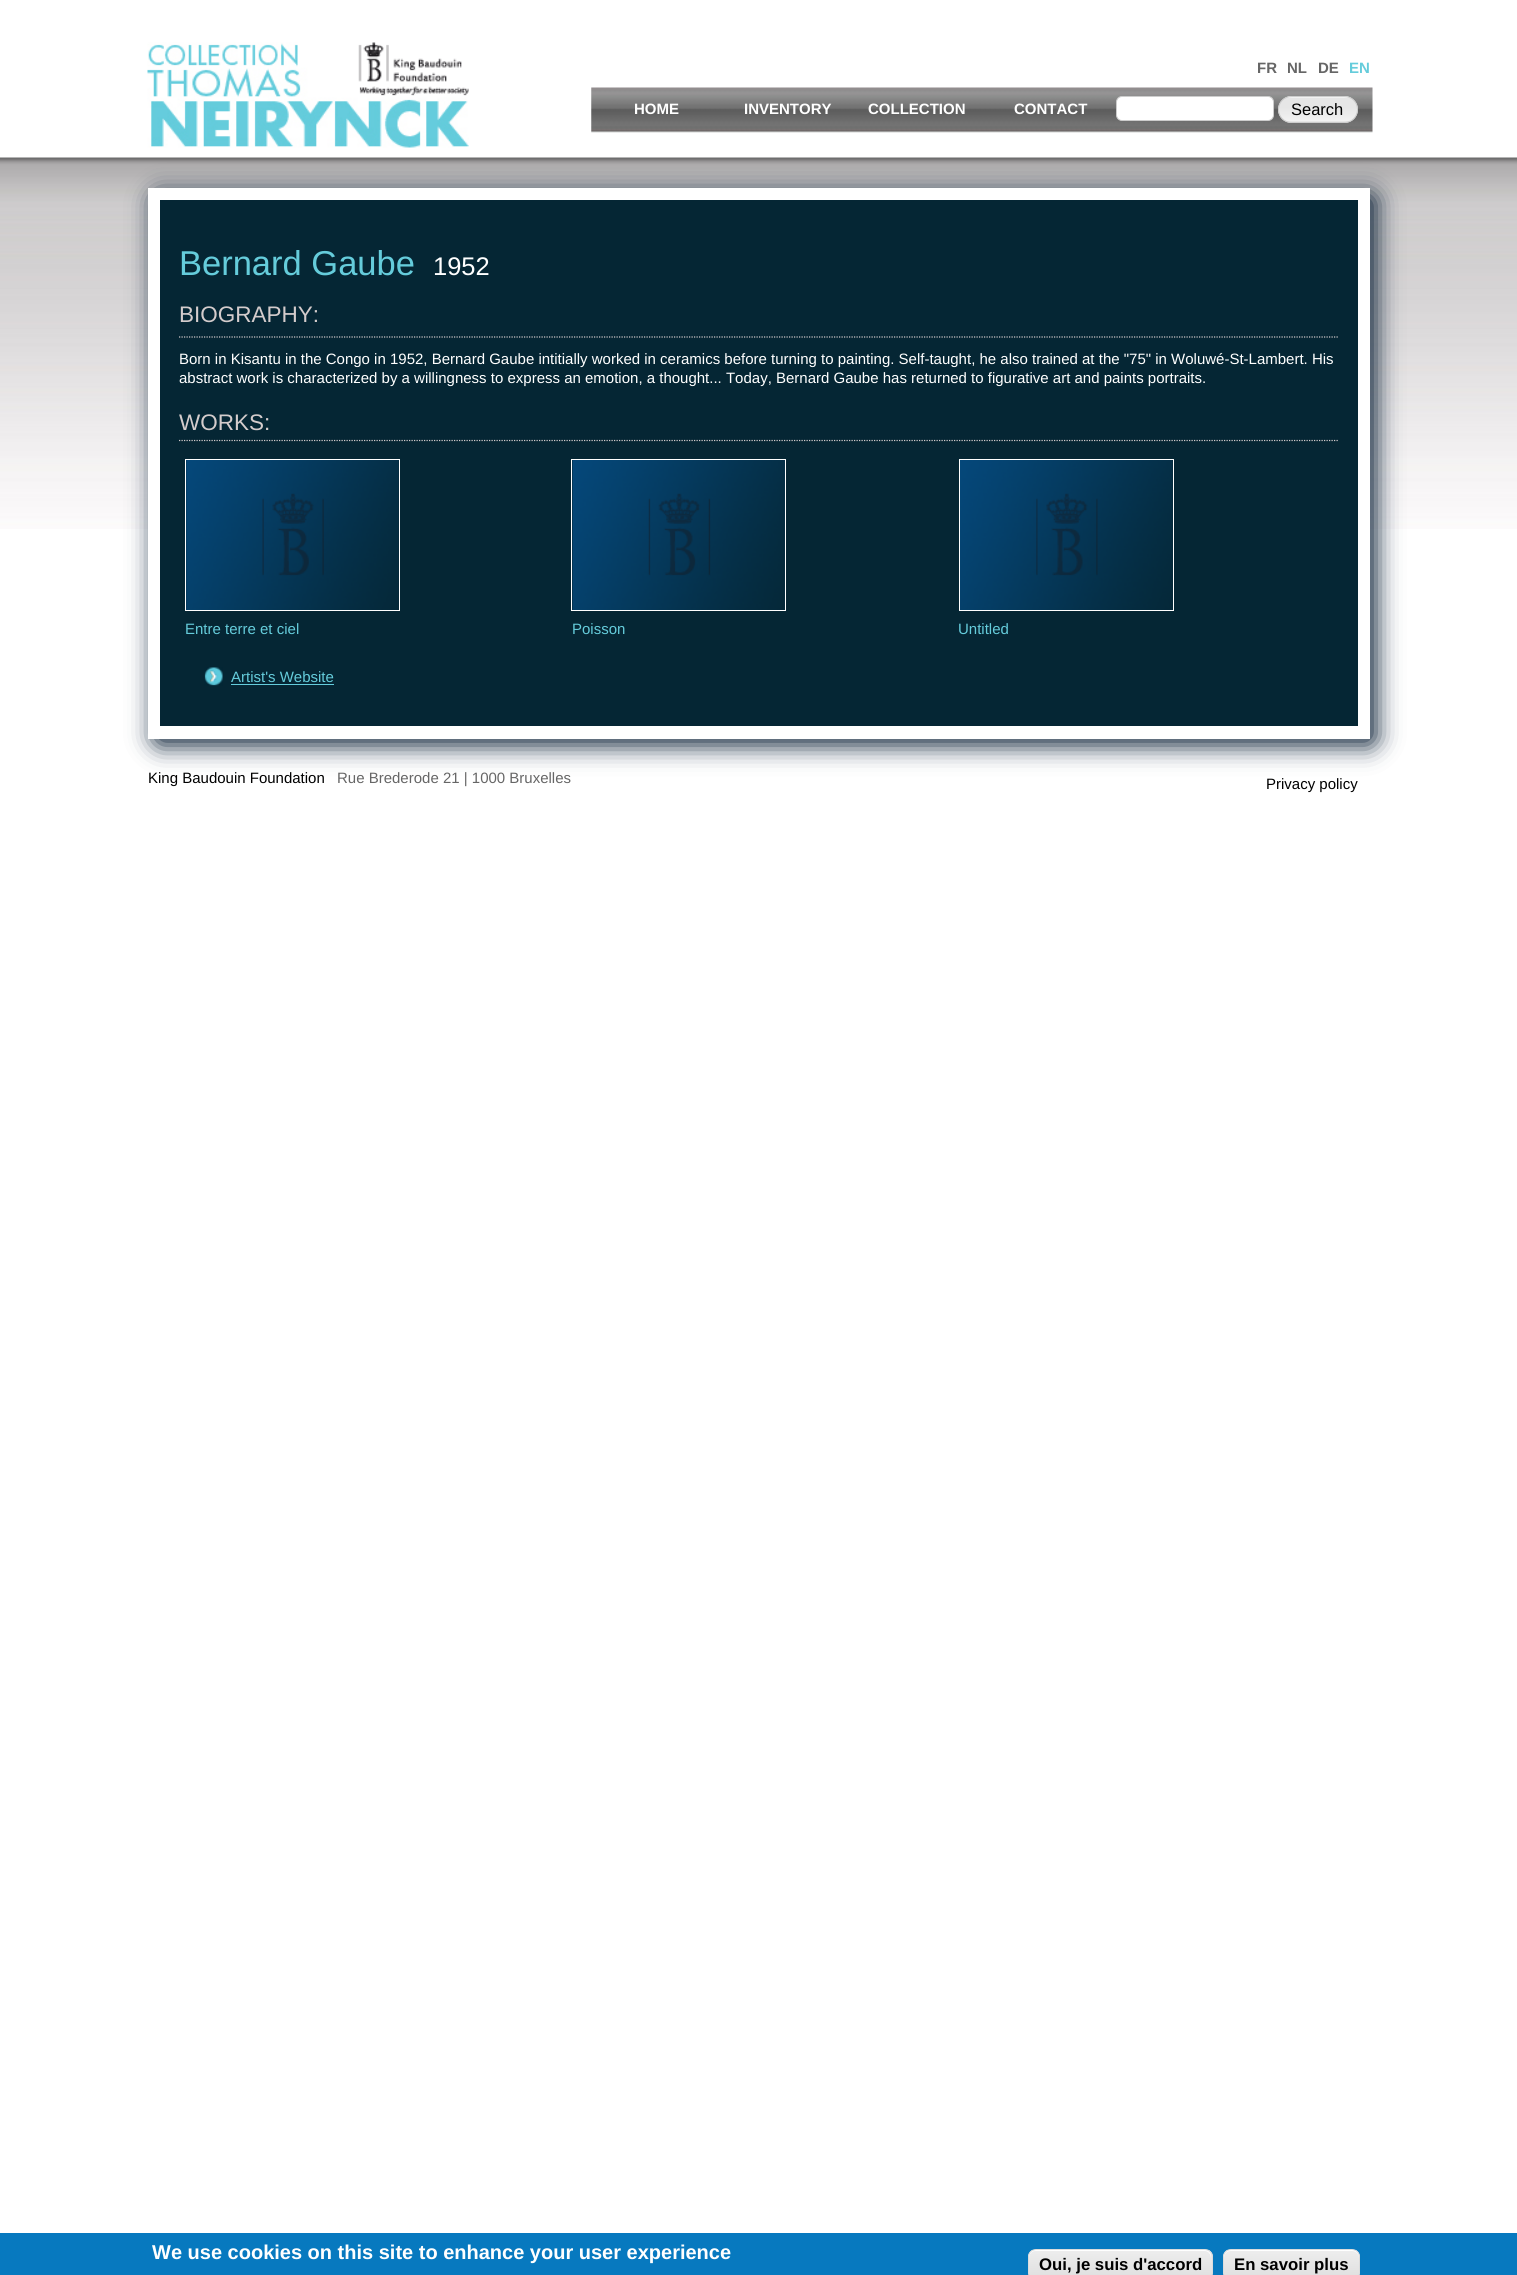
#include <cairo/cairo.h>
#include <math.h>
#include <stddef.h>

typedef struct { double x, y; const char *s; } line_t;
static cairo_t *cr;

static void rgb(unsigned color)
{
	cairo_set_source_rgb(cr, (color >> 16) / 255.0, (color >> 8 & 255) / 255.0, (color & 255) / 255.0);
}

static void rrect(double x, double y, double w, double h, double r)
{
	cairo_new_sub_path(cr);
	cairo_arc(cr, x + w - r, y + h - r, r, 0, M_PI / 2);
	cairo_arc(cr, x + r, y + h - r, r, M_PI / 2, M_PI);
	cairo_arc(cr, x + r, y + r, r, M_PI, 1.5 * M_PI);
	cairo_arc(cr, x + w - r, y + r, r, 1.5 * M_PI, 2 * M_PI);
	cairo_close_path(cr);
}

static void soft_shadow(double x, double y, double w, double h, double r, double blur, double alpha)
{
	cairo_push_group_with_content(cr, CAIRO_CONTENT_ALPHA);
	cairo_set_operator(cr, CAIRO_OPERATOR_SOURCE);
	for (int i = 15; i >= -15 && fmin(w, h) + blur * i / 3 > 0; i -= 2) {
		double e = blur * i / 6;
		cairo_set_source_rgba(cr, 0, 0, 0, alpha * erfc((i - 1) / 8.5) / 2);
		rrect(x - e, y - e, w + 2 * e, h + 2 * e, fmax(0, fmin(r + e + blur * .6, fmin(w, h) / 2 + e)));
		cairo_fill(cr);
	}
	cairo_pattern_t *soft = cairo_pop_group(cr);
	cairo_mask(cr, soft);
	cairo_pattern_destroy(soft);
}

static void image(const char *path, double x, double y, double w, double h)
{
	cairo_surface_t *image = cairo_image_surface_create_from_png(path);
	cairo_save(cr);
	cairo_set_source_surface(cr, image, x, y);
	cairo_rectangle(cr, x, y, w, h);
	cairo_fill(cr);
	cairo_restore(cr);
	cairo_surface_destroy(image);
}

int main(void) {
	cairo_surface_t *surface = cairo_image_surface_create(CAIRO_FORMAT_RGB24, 1517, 2275);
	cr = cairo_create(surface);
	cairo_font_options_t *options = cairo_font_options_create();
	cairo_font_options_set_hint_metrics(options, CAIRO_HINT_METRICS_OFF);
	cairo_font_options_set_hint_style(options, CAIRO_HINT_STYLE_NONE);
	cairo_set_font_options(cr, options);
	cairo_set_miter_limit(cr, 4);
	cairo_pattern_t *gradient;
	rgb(0xffffff);
	cairo_paint(cr);
	image("img/1.png", 0, 157, 1517, 372);
	image("img/2.png", 147, 42, 322, 106);
	image("img/3.png", 591, 87, 782, 46);
	rgb(0xffffff);
	rrect(1116.5, 96.5, 157, 24, 5.5);
	cairo_fill_preserve(cr);
	rgb(0xcccccc);
	cairo_set_line_width(cr, 1);
	cairo_stroke(cr);
	cairo_save(cr);
	rrect(1278, 96, 80, 27, 13.5);
	cairo_clip(cr);
	gradient = cairo_pattern_create_linear(1279, 98, 1279, 74);
	cairo_pattern_add_color_stop_rgba(gradient, 0, 0.949, 0.949, 0.949, 1);
	cairo_pattern_add_color_stop_rgba(gradient, 0.6, 0.902, 0.902, 0.902, 1);
	cairo_set_source(cr, gradient);
	cairo_pattern_destroy(gradient);
	cairo_rectangle(cr, 1278, 96, 80, 2);
	cairo_fill(cr);
	gradient = cairo_pattern_create_linear(1279, 121, 1279, 98);
	cairo_pattern_add_color_stop_rgba(gradient, 0, 0.949, 0.949, 0.949, 1);
	cairo_pattern_add_color_stop_rgba(gradient, 0.6, 0.902, 0.902, 0.902, 1);
	cairo_set_source(cr, gradient);
	cairo_pattern_destroy(gradient);
	cairo_rectangle(cr, 1278, 98, 80, 23);
	cairo_fill(cr);
	gradient = cairo_pattern_create_linear(1279, 145, 1279, 121);
	cairo_pattern_add_color_stop_rgba(gradient, 0, 0.949, 0.949, 0.949, 1);
	cairo_pattern_add_color_stop_rgba(gradient, 0.6, 0.902, 0.902, 0.902, 1);
	cairo_set_source(cr, gradient);
	cairo_pattern_destroy(gradient);
	cairo_rectangle(cr, 1278, 121, 80, 2);
	cairo_fill(cr);
	cairo_restore(cr);
	rrect(1278.5, 96.5, 79, 26, 13);
	cairo_stroke(cr);
	rgb(0x051b32);
	soft_shadow(154, 194, 1222, 551, 6, 12.5, 1);
	cairo_new_path(cr);
	cairo_move_to(cr, 154.5, 194.5);
	cairo_line_to(cr, 1363.5, 194.5);
	cairo_line_to(cr, 1363.5, 732.5);
	cairo_line_to(cr, 154.5, 732.5);
	cairo_close_path(cr);
	rgb(0xffffff);
	cairo_set_line_width(cr, 13);
	cairo_stroke(cr);
	rgb(0x052634);
	cairo_rectangle(cr, 160, 200, 1198, 526);
	cairo_fill(cr);
	cairo_new_path(cr);
	cairo_move_to(cr, 179, 337);
	cairo_line_to(cr, 1339, 337);
	rgb(0xd4cccc);
	cairo_set_line_width(cr, 1.2);
	cairo_set_dash(cr, (double[]){1.25, 1.25}, 2, 0);
	cairo_stroke(cr);
	cairo_new_path(cr);
	cairo_move_to(cr, 179, 440.5);
	cairo_line_to(cr, 1339, 440.5);
	cairo_stroke(cr);
	cairo_rectangle(cr, 185.5, 459.5, 214, 151);
	rgb(0xffffff);
	cairo_set_line_width(cr, 1);
	cairo_set_dash(cr, NULL, 0, 0);
	cairo_stroke(cr);
	image("img/4.png", 186, 460, 213, 150);
	cairo_rectangle(cr, 571.5, 459.5, 214, 151);
	cairo_stroke(cr);
	image("img/5.png", 572, 460, 213, 150);
	cairo_rectangle(cr, 959.5, 459.5, 214, 151);
	cairo_stroke(cr);
	image("img/6.png", 960, 460, 213, 150);
	image("img/7.png", 204, 667, 19, 19);
	rgb(0x64ccdc);
	cairo_rectangle(cr, 231, 684, 103, 1);
	cairo_fill(cr);
	rgb(0x0779bf);
	cairo_rectangle(cr, 0, 2233, 1517, 42);
	cairo_fill(cr);
	cairo_save(cr);
	rrect(1028, 2249, 185, 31, 8);
	cairo_clip(cr);
	gradient = cairo_pattern_create_linear(1120, 2250, 1120, 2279);
	cairo_pattern_add_color_stop_rgba(gradient, 0.05, 0.929, 0.929, 0.929, 1);
	cairo_pattern_add_color_stop_rgba(gradient, 1, 0.875, 0.875, 0.875, 1);
	cairo_set_source(cr, gradient);
	cairo_pattern_destroy(gradient);
	cairo_rectangle(cr, 1028, 2250, 185, 25);
	cairo_fill(cr);
	cairo_restore(cr);
	rgb(0xffffff);
	cairo_new_path(cr);
	cairo_move_to(cr, 1035, 2251);
	cairo_line_to(cr, 1205, 2251);
	cairo_curve_to(cr, 1208, 2251, 1211, 2254, 1211, 2258);
	cairo_line_to(cr, 1211, 2256);
	cairo_curve_to(cr, 1211, 2253, 1208, 2250, 1205, 2250);
	cairo_line_to(cr, 1035, 2250);
	cairo_curve_to(cr, 1032, 2250, 1029, 2253, 1029, 2256);
	cairo_line_to(cr, 1029, 2258);
	cairo_curve_to(cr, 1029, 2254, 1032, 2251, 1035, 2251);
	cairo_close_path(cr);
	cairo_fill(cr);
	rrect(1028.5, 2249.5, 184, 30, 7.5);
	rgb(0xdcdcdc);
	cairo_stroke(cr);
	cairo_save(cr);
	rrect(1223, 2249, 137, 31, 8);
	cairo_clip(cr);
	gradient = cairo_pattern_create_linear(1291, 2250, 1291, 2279);
	cairo_pattern_add_color_stop_rgba(gradient, 0.05, 0.929, 0.929, 0.929, 1);
	cairo_pattern_add_color_stop_rgba(gradient, 1, 0.875, 0.875, 0.875, 1);
	cairo_set_source(cr, gradient);
	cairo_pattern_destroy(gradient);
	cairo_rectangle(cr, 1223, 2250, 137, 25);
	cairo_fill(cr);
	cairo_restore(cr);
	rgb(0xffffff);
	cairo_new_path(cr);
	cairo_move_to(cr, 1230, 2251);
	cairo_line_to(cr, 1352, 2251);
	cairo_curve_to(cr, 1356, 2251, 1359, 2254, 1359, 2258);
	cairo_line_to(cr, 1359, 2256);
	cairo_curve_to(cr, 1359, 2253, 1356, 2250, 1353, 2250);
	cairo_line_to(cr, 1230, 2250);
	cairo_curve_to(cr, 1227, 2250, 1224, 2253, 1224, 2256);
	cairo_line_to(cr, 1224, 2258);
	cairo_curve_to(cr, 1224, 2254, 1227, 2251, 1230, 2251);
	cairo_close_path(cr);
	cairo_fill(cr);
	rrect(1223.5, 2249.5, 136, 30, 7.5);
	rgb(0xdcdcdc);
	cairo_stroke(cr);
	cairo_select_font_face(cr, "Liberation Sans", CAIRO_FONT_SLANT_NORMAL, CAIRO_FONT_WEIGHT_BOLD);
	cairo_set_font_size(cr, 15);
	rgb(0x666666);
	{
		static const line_t items[] = {
			{1257, 73, "FR"},
			{1287, 73, "NL"},
			{1318, 73, "DE"},
		};
		for (size_t i = 0; i < sizeof items / sizeof *items; i++) {
			cairo_move_to(cr, items[i].x, items[i].y);
			cairo_show_text(cr, items[i].s);
		}
	}
	rgb(0x65ccdb);
	cairo_move_to(cr, 1349, 73);
	cairo_show_text(cr, "EN");
	rgb(0xffffff);
	{
		static const line_t items[] = {
			{634, 114, "HOME"},
			{744, 114, "INVENTORY"},
			{868, 114, "COLLECTION"},
			{1014, 114, "CONTACT"},
		};
		for (size_t i = 0; i < sizeof items / sizeof *items; i++) {
			cairo_move_to(cr, items[i].x, items[i].y);
			cairo_show_text(cr, items[i].s);
		}
	}
	cairo_select_font_face(cr, "Liberation Sans", CAIRO_FONT_SLANT_NORMAL, CAIRO_FONT_WEIGHT_NORMAL);
	cairo_set_font_size(cr, 16.5);
	rgb(0x000000);
	cairo_move_to(cr, 1291, 115);
	cairo_show_text(cr, "Search");
	cairo_set_font_size(cr, 34.5);
	rgb(0x65ccdb);
	cairo_move_to(cr, 179, 275);
	cairo_show_text(cr, "Bernard Gaube");
	cairo_set_font_size(cr, 25.5);
	rgb(0xffffff);
	cairo_move_to(cr, 433, 275);
	cairo_show_text(cr, "1952");
	cairo_set_font_size(cr, 22.5);
	rgb(0xd4cccc);
	cairo_move_to(cr, 179, 322);
	cairo_show_text(cr, "BIOGRAPHY:");
	cairo_set_font_size(cr, 15);
	rgb(0xffffff);
	cairo_move_to(cr, 179, 364);
	cairo_show_text(cr, "Born in Kisantu in the Congo in 1952, Bernard Gaube intitially worked in ceramics before turning to painting. Self-taught, he also trained at the \"75\" in Woluwé-St-Lambert. His");
	cairo_move_to(cr, 179, 383);
	cairo_show_text(cr, "abstract work is characterized by a willingness to express an emotion, a thought... Today, Bernard Gaube has returned to figurative art and paints portraits.");
	cairo_set_font_size(cr, 22.5);
	rgb(0xd4cccc);
	cairo_move_to(cr, 179, 430);
	cairo_show_text(cr, "WORKS:");
	cairo_set_font_size(cr, 15);
	rgb(0x65ccdb);
	{
		static const line_t items[] = {
			{185, 634, "Entre terre et ciel"},
			{572, 634, "Poisson"},
			{958, 634, "Untitled"},
			{231, 682, "Artist's Website"},
		};
		for (size_t i = 0; i < sizeof items / sizeof *items; i++) {
			cairo_move_to(cr, items[i].x, items[i].y);
			cairo_show_text(cr, items[i].s);
		}
	}
	rgb(0x000000);
	cairo_move_to(cr, 148, 783);
	cairo_show_text(cr, "King Baudouin Foundation");
	rgb(0x666666);
	cairo_move_to(cr, 337, 783);
	cairo_show_text(cr, "Rue Brederode 21 | 1000 Bruxelles");
	rgb(0x000000);
	cairo_move_to(cr, 1266, 789);
	cairo_show_text(cr, "Privacy policy");
	cairo_select_font_face(cr, "Liberation Sans", CAIRO_FONT_SLANT_NORMAL, CAIRO_FONT_WEIGHT_BOLD);
	cairo_set_font_size(cr, 20);
	rgb(0xffffff);
	cairo_move_to(cr, 152, 2259);
	cairo_show_text(cr, "We use cookies on this site to enhance your user experience");
	cairo_set_font_size(cr, 16.75);
	rgb(0x000000);
	cairo_move_to(cr, 1039, 2270);
	cairo_show_text(cr, "Oui, je suis d'accord");
	cairo_move_to(cr, 1234, 2270);
	cairo_show_text(cr, "En savoir plus");
	cairo_surface_write_to_png(surface, "page.png");
	cairo_font_options_destroy(options);
	cairo_destroy(cr);
	cairo_surface_destroy(surface);
	return 0;
}
